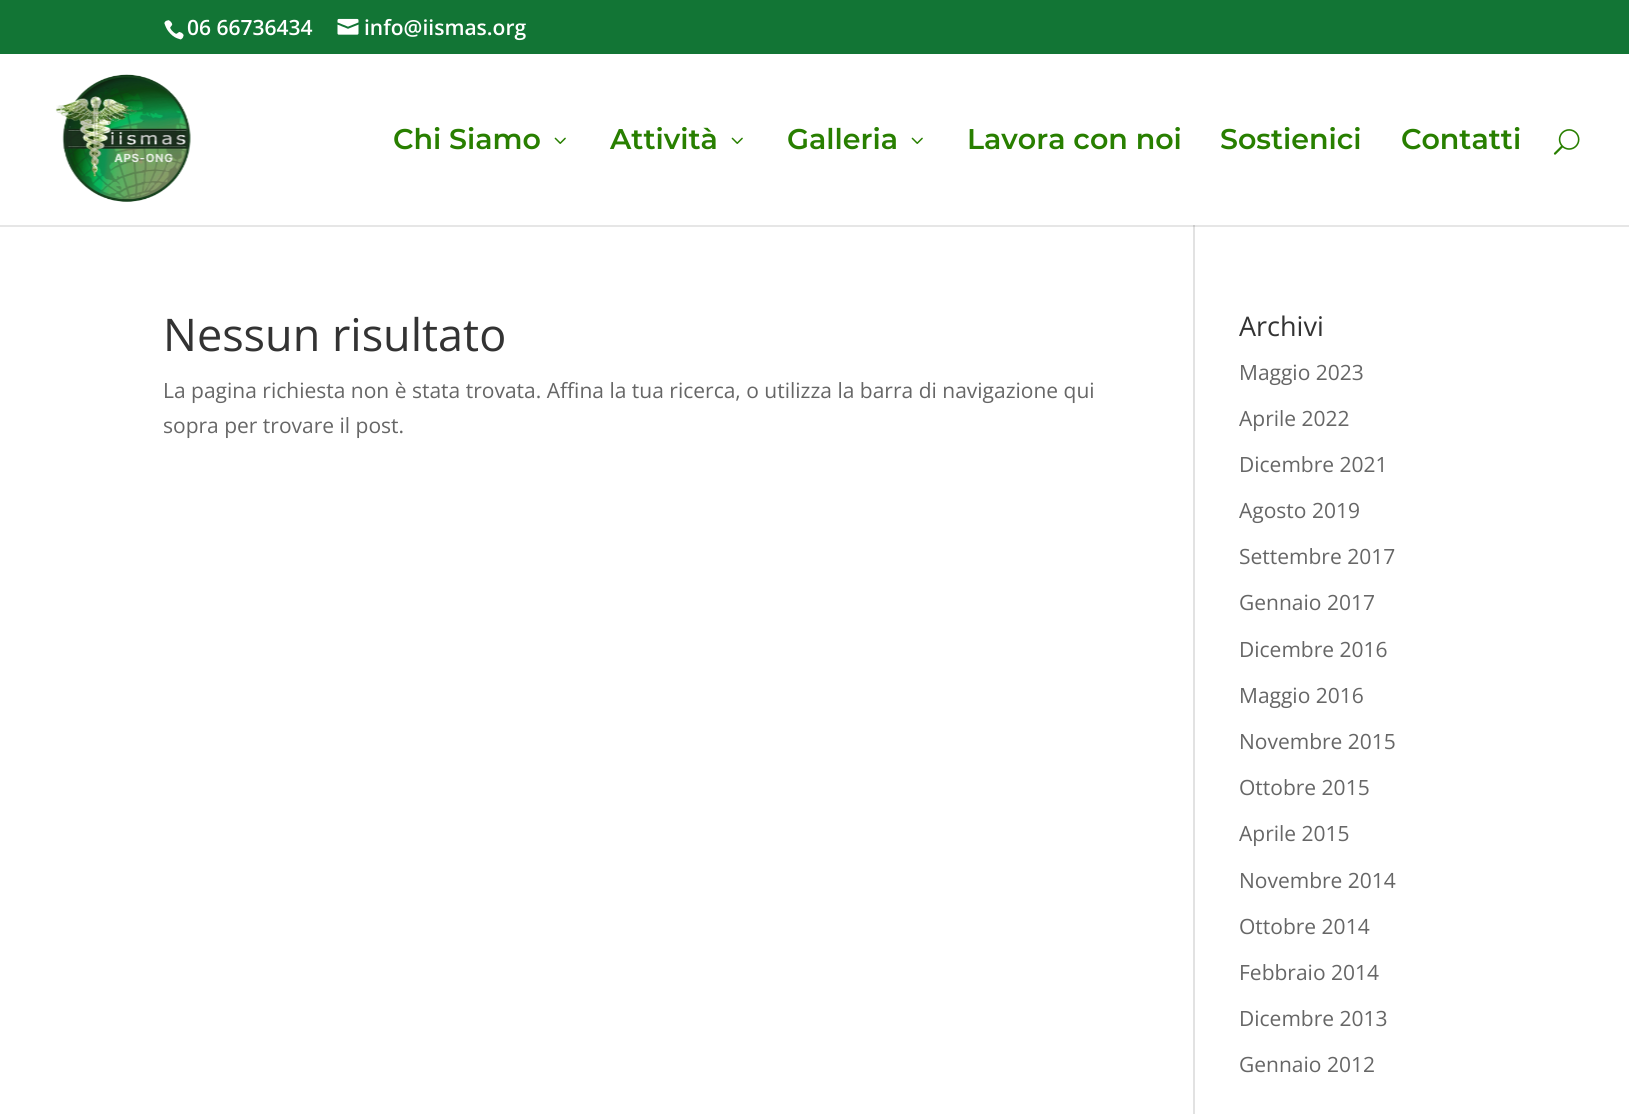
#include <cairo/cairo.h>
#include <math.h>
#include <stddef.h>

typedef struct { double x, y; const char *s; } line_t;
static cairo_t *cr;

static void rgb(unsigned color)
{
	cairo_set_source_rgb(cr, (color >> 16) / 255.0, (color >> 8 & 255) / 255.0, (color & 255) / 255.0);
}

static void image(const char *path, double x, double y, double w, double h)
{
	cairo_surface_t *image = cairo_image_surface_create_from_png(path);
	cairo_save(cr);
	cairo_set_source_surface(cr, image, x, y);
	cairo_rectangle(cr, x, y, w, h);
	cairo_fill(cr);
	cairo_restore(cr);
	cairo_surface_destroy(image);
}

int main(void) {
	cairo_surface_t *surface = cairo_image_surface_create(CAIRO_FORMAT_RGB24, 1629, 1114);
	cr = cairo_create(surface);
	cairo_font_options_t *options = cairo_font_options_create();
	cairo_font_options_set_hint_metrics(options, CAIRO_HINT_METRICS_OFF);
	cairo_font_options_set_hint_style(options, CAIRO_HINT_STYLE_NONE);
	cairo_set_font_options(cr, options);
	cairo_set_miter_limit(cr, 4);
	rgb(0xffffff);
	cairo_paint(cr);
	rgb(0xe6e6e6);
	cairo_rectangle(cr, 0, 225, 1629, 2);
	cairo_fill(cr);
	rgb(0x127535);
	cairo_rectangle(cr, 0, 0, 1629, 54);
	cairo_fill(cr);
	image("img/1.png", 164, 20, 20, 20);
	image("img/2.png", 337, 18, 22, 17);
	image("img/3.png", 55, 74, 136, 128);
	image("img/4.png", 554, 137, 12, 7);
	image("img/4.png", 731, 137, 12, 7);
	image("img/4.png", 911, 137, 12, 7);
	image("img/5.png", 1553, 129, 27, 26);
	rgb(0xe2e2e2);
	cairo_rectangle(cr, 1193, 225, 2, 889);
	cairo_fill(cr);
	rgb(0xcbcbcb);
	cairo_rectangle(cr, 1193, 225, 2, 2);
	cairo_fill(cr);
	cairo_select_font_face(cr, "Open Sans SemiBold", CAIRO_FONT_SLANT_NORMAL, CAIRO_FONT_WEIGHT_NORMAL);
	cairo_set_font_size(cr, 21);
	rgb(0xffffff);
	cairo_move_to(cr, 187, 35);
	cairo_show_text(cr, "06 66736434");
	cairo_move_to(cr, 364, 35);
	cairo_show_text(cr, "info@iismas.org");
	cairo_select_font_face(cr, "Montserrat SemiBold", CAIRO_FONT_SLANT_NORMAL, CAIRO_FONT_WEIGHT_NORMAL);
	cairo_set_font_size(cr, 28.5);
	rgb(0x287f00);
	{
		static const line_t items[] = {
			{393, 149, "Chi Siamo"},
			{610, 149, "Attività"},
			{787, 149, "Galleria"},
			{967, 149, "Lavora con noi"},
			{1220, 149, "Sostienici"},
			{1401, 149, "Contatti"},
		};
		for (size_t i = 0; i < sizeof items / sizeof *items; i++) {
			cairo_move_to(cr, items[i].x, items[i].y);
			cairo_show_text(cr, items[i].s);
		}
	}
	cairo_select_font_face(cr, "Open Sans", CAIRO_FONT_SLANT_NORMAL, CAIRO_FONT_WEIGHT_NORMAL);
	cairo_set_font_size(cr, 45);
	rgb(0x333333);
	cairo_move_to(cr, 163, 351);
	cairo_show_text(cr, "Nessun risultato");
	cairo_set_font_size(cr, 21);
	rgb(0x666666);
	cairo_move_to(cr, 163, 398);
	cairo_show_text(cr, "La pagina richiesta non è stata trovata. Affina la tua ricerca, o utilizza la barra di navigazione qui");
	cairo_move_to(cr, 163, 433);
	cairo_show_text(cr, "sopra per trovare il post.");
	cairo_set_font_size(cr, 27);
	rgb(0x333333);
	cairo_move_to(cr, 1239, 336);
	cairo_show_text(cr, "Archivi");
	cairo_set_font_size(cr, 21);
	rgb(0x666666);
	{
		static const line_t items[] = {
			{1239, 380, "Maggio 2023"},
			{1239, 426, "Aprile 2022"},
			{1239, 472, "Dicembre 2021"},
			{1239, 518, "Agosto 2019"},
			{1239, 564, "Settembre 2017"},
			{1239, 610, "Gennaio 2017"},
			{1239, 657, "Dicembre 2016"},
			{1239, 703, "Maggio 2016"},
			{1239, 749, "Novembre 2015"},
			{1239, 795, "Ottobre 2015"},
			{1239, 841, "Aprile 2015"},
			{1239, 888, "Novembre 2014"},
			{1239, 934, "Ottobre 2014"},
			{1239, 980, "Febbraio 2014"},
			{1239, 1026, "Dicembre 2013"},
			{1239, 1072, "Gennaio 2012"},
		};
		for (size_t i = 0; i < sizeof items / sizeof *items; i++) {
			cairo_move_to(cr, items[i].x, items[i].y);
			cairo_show_text(cr, items[i].s);
		}
	}
	cairo_surface_write_to_png(surface, "page.png");
	cairo_font_options_destroy(options);
	cairo_destroy(cr);
	cairo_surface_destroy(surface);
	return 0;
}
